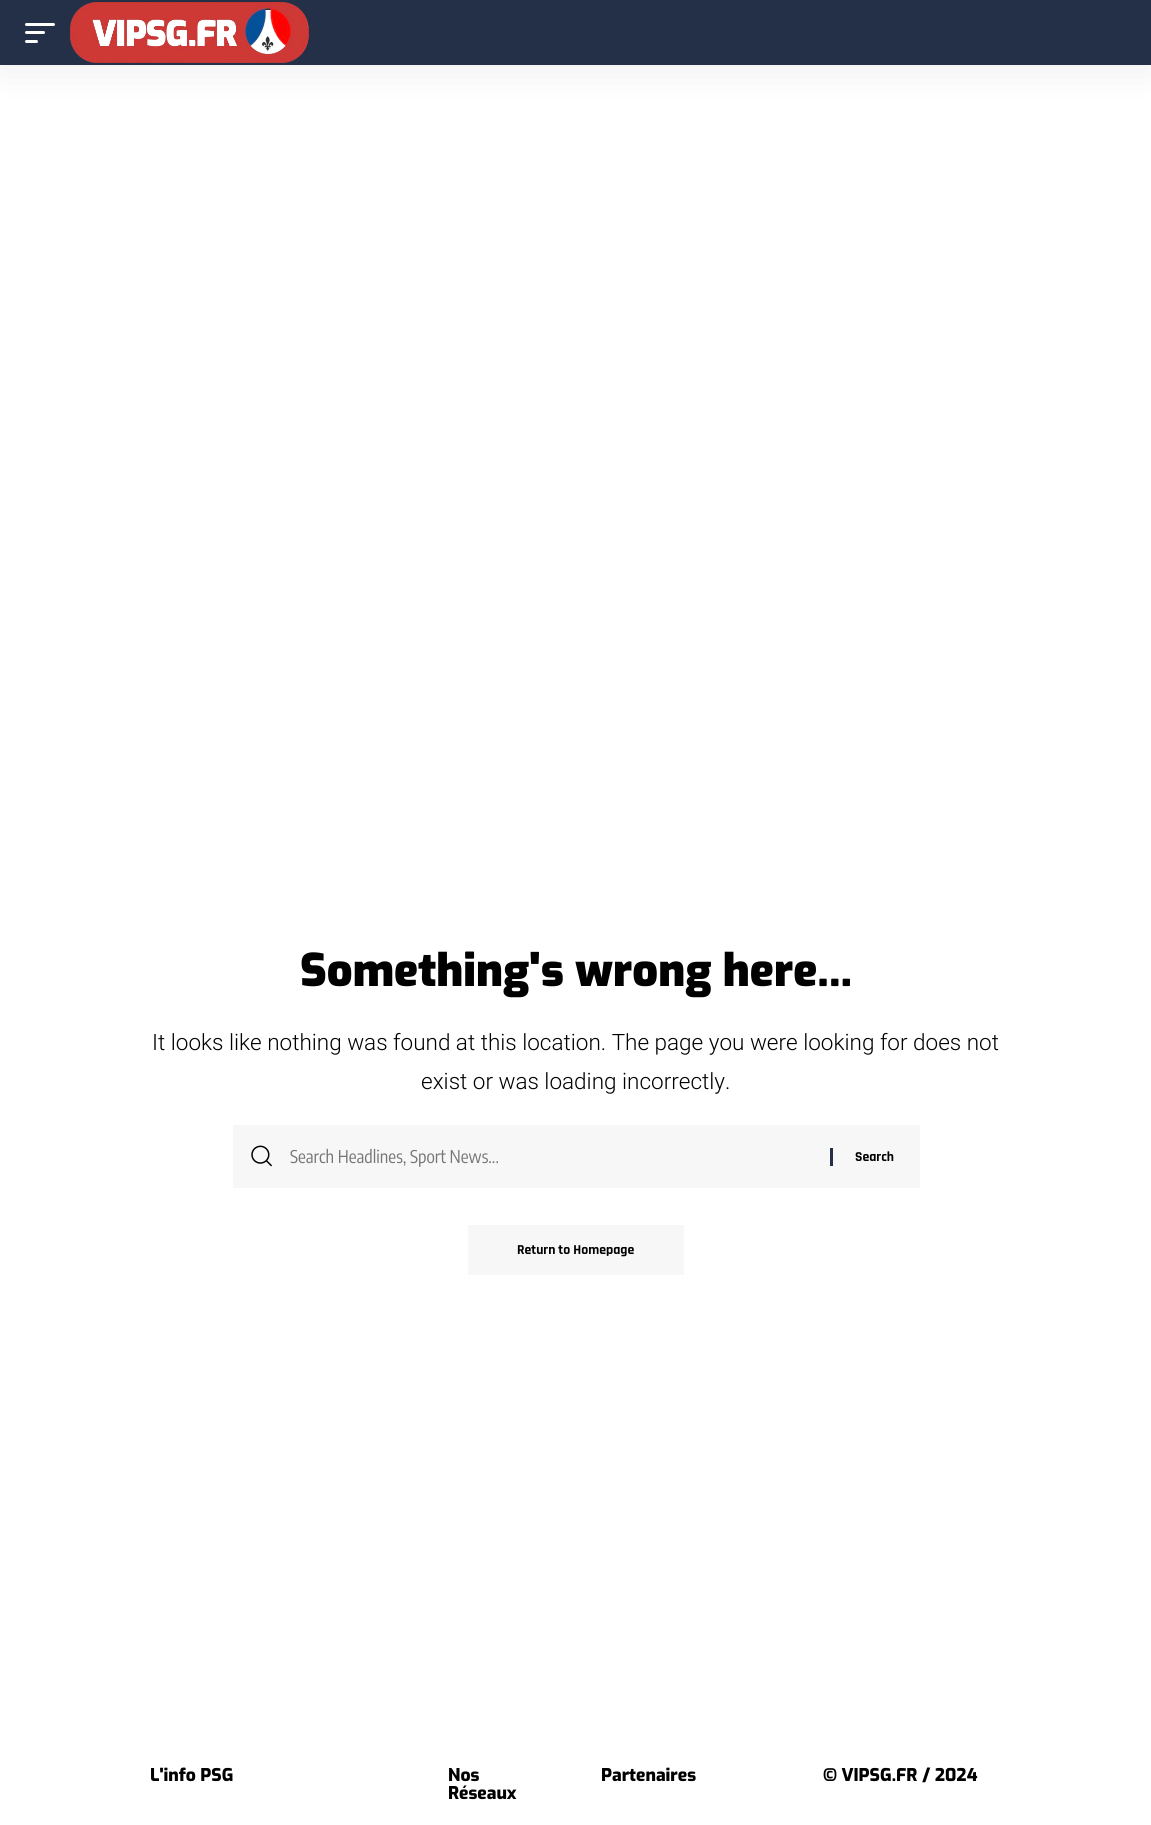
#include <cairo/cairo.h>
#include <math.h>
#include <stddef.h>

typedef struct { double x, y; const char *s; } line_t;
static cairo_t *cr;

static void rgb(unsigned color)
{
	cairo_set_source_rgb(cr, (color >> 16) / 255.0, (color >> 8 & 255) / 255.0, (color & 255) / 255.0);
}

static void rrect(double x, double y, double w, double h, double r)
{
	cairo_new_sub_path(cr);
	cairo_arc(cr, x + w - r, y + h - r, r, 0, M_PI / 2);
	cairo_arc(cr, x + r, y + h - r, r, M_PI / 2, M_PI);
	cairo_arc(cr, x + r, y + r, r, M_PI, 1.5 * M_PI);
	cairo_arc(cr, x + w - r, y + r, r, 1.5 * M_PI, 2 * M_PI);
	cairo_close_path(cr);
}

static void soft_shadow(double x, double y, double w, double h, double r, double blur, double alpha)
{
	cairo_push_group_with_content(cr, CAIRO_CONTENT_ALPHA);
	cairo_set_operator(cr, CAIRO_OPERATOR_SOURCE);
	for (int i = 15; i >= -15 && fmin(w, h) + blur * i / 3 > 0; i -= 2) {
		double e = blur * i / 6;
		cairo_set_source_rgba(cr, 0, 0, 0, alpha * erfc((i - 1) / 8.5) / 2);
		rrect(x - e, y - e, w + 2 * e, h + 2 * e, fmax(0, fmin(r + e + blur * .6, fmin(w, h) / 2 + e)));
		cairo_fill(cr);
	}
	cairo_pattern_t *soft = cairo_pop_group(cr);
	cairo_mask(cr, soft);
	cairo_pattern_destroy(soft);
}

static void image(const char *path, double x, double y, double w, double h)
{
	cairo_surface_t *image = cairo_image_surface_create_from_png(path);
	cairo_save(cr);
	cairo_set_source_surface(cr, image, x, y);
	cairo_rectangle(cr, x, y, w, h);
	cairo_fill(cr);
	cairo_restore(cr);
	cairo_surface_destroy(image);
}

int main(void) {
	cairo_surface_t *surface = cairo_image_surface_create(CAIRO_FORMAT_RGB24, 1151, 1825);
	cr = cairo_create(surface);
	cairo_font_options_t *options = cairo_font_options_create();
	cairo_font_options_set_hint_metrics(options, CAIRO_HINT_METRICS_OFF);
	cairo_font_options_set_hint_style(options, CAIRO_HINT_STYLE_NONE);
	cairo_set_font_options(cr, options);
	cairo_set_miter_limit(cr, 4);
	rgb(0xffffff);
	cairo_paint(cr);
	rgb(0x000000);
	soft_shadow(0, 5, 1151, 65, 0, 19, 0.07);
	rgb(0x233047);
	cairo_rectangle(cr, 0, 0, 1151, 65);
	cairo_fill(cr);
	rgb(0xffffff);
	rrect(25, 23, 30, 3, 1.5);
	cairo_fill(cr);
	rrect(25, 31, 20, 3, 1.5);
	cairo_fill(cr);
	rrect(25, 40, 13, 3, 1.5);
	cairo_fill(cr);
	image("img/1.png", 70, 2, 239, 61);
	rgb(0xf7f7f7);
	cairo_rectangle(cr, 233, 1125, 687, 63);
	cairo_fill(cr);
	image("img/2.png", 251, 1145, 21, 22);
	rgb(0x233047);
	cairo_rectangle(cr, 830, 1148, 3, 18);
	cairo_fill(cr);
	rgb(0xf7f7f7);
	cairo_rectangle(cr, 468, 1225, 216, 50);
	cairo_fill(cr);
	cairo_select_font_face(cr, "Exo Black", CAIRO_FONT_SLANT_NORMAL, CAIRO_FONT_WEIGHT_NORMAL);
	cairo_set_font_size(cr, 45);
	rgb(0x000000);
	cairo_move_to(cr, 300, 986);
	cairo_show_text(cr, "Something's wrong here...");
	cairo_select_font_face(cr, "Roboto Light", CAIRO_FONT_SLANT_NORMAL, CAIRO_FONT_WEIGHT_NORMAL);
	cairo_set_font_size(cr, 22.5);
	cairo_move_to(cr, 152, 1050);
	cairo_show_text(cr, "It looks like nothing was found at this location. The page you were looking for does not");
	cairo_move_to(cr, 421, 1089);
	cairo_show_text(cr, "exist or was loading incorrectly.");
	cairo_select_font_face(cr, "Encode Sans Condensed", CAIRO_FONT_SLANT_NORMAL, CAIRO_FONT_WEIGHT_NORMAL);
	cairo_set_font_size(cr, 17.5);
	rgb(0x757575);
	cairo_move_to(cr, 290, 1163);
	cairo_show_text(cr, "Search Headlines, Sport News...");
	cairo_select_font_face(cr, "Rajdhani", CAIRO_FONT_SLANT_NORMAL, CAIRO_FONT_WEIGHT_BOLD);
	cairo_set_font_size(cr, 13.75);
	rgb(0x000000);
	cairo_move_to(cr, 855, 1161);
	cairo_show_text(cr, "Search");
	cairo_move_to(cr, 517, 1254);
	cairo_show_text(cr, "Return to Homepage");
	cairo_select_font_face(cr, "Exo ExtraBold", CAIRO_FONT_SLANT_NORMAL, CAIRO_FONT_WEIGHT_NORMAL);
	cairo_set_font_size(cr, 17.5);
	{
		static const line_t items[] = {
			{150, 1781, "L'info PSG"},
			{448, 1781, "Nos"},
			{448, 1799, "Réseaux"},
			{601, 1781, "Partenaires"},
			{823, 1781, "© VIPSG.FR / 2024"},
		};
		for (size_t i = 0; i < sizeof items / sizeof *items; i++) {
			cairo_move_to(cr, items[i].x, items[i].y);
			cairo_show_text(cr, items[i].s);
		}
	}
	cairo_surface_write_to_png(surface, "page.png");
	cairo_font_options_destroy(options);
	cairo_destroy(cr);
	cairo_surface_destroy(surface);
	return 0;
}
